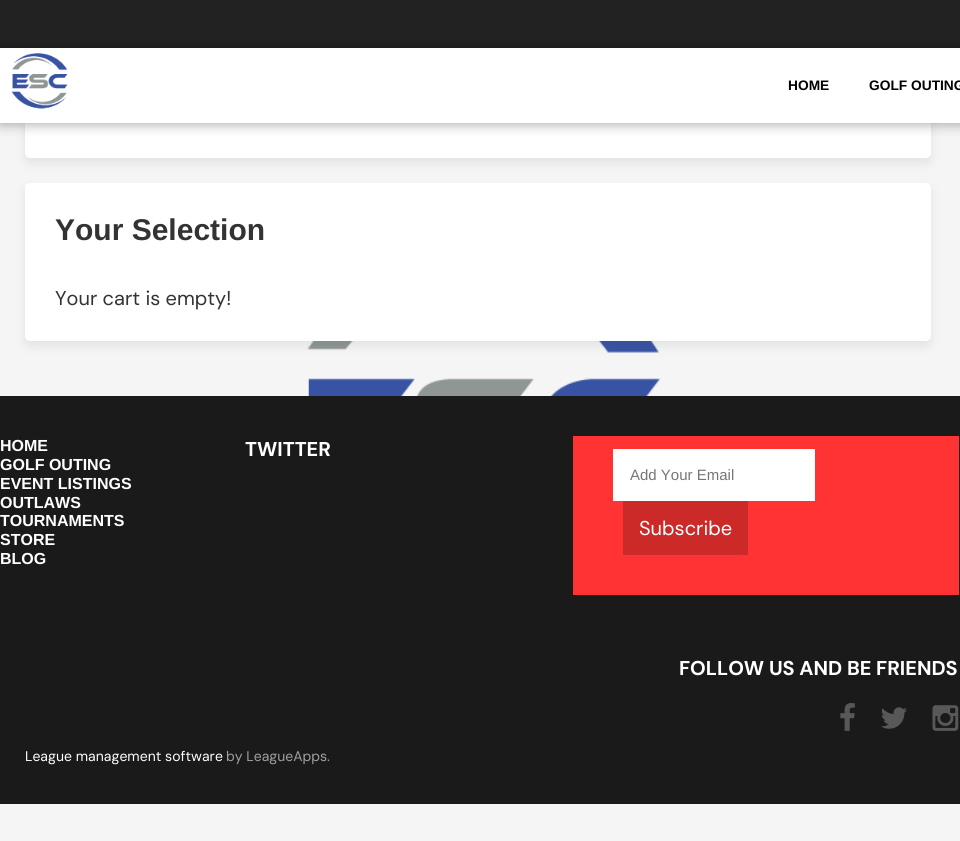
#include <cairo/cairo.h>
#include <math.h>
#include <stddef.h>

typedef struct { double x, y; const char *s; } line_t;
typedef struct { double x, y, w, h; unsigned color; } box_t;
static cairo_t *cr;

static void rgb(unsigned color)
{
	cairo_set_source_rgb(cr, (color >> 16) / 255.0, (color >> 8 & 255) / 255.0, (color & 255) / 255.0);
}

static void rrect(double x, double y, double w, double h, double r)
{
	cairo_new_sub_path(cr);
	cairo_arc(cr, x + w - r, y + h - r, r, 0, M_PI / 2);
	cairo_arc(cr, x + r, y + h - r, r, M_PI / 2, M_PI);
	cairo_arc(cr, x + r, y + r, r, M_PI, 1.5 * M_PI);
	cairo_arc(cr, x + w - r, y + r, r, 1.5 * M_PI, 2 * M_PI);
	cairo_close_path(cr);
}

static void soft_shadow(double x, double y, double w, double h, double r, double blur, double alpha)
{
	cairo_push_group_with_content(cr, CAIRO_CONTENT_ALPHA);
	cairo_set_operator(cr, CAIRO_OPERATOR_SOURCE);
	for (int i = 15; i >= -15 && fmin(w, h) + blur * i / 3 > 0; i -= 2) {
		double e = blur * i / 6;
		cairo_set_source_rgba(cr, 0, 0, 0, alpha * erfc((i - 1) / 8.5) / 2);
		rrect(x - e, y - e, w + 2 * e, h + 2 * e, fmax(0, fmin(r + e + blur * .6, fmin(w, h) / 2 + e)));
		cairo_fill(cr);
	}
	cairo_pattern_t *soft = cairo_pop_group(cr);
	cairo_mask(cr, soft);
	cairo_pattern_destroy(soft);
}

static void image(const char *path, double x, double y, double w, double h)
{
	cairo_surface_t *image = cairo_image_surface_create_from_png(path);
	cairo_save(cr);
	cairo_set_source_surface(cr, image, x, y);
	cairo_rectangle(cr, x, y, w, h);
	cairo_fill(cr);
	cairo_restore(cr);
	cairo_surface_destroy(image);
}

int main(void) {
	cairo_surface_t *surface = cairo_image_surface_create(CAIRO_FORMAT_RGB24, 960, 841);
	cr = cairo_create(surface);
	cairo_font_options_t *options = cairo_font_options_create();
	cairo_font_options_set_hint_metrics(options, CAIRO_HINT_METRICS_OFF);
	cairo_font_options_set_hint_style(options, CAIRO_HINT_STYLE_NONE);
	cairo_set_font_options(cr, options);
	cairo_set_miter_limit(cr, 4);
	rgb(0xf5f5f5);
	cairo_paint(cr);
	image("img/1.png", 307, 341, 354, 55);
	rgb(0x263238);
	soft_shadow(25, 30, 906, 133, 5, 5, 0.1);
	rgb(0xffffff);
	rrect(25, 25, 906, 133, 5);
	cairo_fill(cr);
	rgb(0x222222);
	cairo_rectangle(cr, 0, 0, 960, 48);
	cairo_fill(cr);
	rgb(0x000000);
	soft_shadow(0, 50, 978, 75, 0, 6, 0.3);
	rgb(0xffffff);
	cairo_rectangle(cr, 0, 48, 960, 75);
	cairo_fill(cr);
	image("img/2.png", 11, 53, 57, 56);
	rgb(0x263238);
	soft_shadow(25, 188, 906, 158, 5, 5, 0.1);
	rgb(0xffffff);
	rrect(25, 183, 906, 158, 5);
	cairo_fill(cr);
	{
		static const box_t items[] = {
			{0, 396, 960, 408, 0x1a1a1a},
			{573, 436, 386, 159, 0xff3333},
			{613, 449, 202, 52, 0xffffff},
			{623, 501, 125, 54, 0xcc2929},
		};
		for (size_t i = 0; i < sizeof items / sizeof *items; i++) {
			rgb(items[i].color);
			cairo_rectangle(cr, items[i].x, items[i].y, items[i].w, items[i].h);
			cairo_fill(cr);
		}
	}
	image("img/3.png", 840, 703, 15, 28);
	image("img/4.png", 881, 707, 26, 22);
	image("img/5.png", 932, 705, 27, 26);
	cairo_select_font_face(cr, "Liberation Sans", CAIRO_FONT_SLANT_NORMAL, CAIRO_FONT_WEIGHT_BOLD);
	cairo_set_font_size(cr, 13.75);
	rgb(0x000000);
	cairo_move_to(cr, 788, 90);
	cairo_show_text(cr, "HOME");
	cairo_move_to(cr, 869, 90);
	cairo_show_text(cr, "GOLF OUTING");
	cairo_set_font_size(cr, 30);
	rgb(0x333333);
	cairo_move_to(cr, 55, 240);
	cairo_show_text(cr, "Your Selection");
	cairo_select_font_face(cr, "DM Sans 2", CAIRO_FONT_SLANT_NORMAL, CAIRO_FONT_WEIGHT_NORMAL);
	cairo_set_font_size(cr, 20);
	cairo_move_to(cr, 55, 305);
	cairo_show_text(cr, "Your cart is empty!");
	cairo_select_font_face(cr, "Liberation Sans", CAIRO_FONT_SLANT_NORMAL, CAIRO_FONT_WEIGHT_BOLD);
	cairo_set_font_size(cr, 16);
	rgb(0xffffff);
	{
		static const line_t items[] = {
			{0, 451, "HOME"},
			{0, 470, "GOLF OUTING"},
			{0, 489, "EVENT LISTINGS"},
			{0, 508, "OUTLAWS"},
			{0, 526, "TOURNAMENTS"},
			{0, 545, "STORE"},
			{0, 564, "BLOG"},
		};
		for (size_t i = 0; i < sizeof items / sizeof *items; i++) {
			cairo_move_to(cr, items[i].x, items[i].y);
			cairo_show_text(cr, items[i].s);
		}
	}
	cairo_select_font_face(cr, "DM Sans", CAIRO_FONT_SLANT_NORMAL, CAIRO_FONT_WEIGHT_BOLD);
	cairo_set_font_size(cr, 20);
	cairo_move_to(cr, 245, 456);
	cairo_show_text(cr, "TWITTER");
	cairo_select_font_face(cr, "Liberation Sans", CAIRO_FONT_SLANT_NORMAL, CAIRO_FONT_WEIGHT_NORMAL);
	cairo_set_font_size(cr, 15);
	rgb(0x757575);
	cairo_move_to(cr, 630, 480);
	cairo_show_text(cr, "Add Your Email");
	cairo_select_font_face(cr, "DM Sans 2", CAIRO_FONT_SLANT_NORMAL, CAIRO_FONT_WEIGHT_NORMAL);
	cairo_set_font_size(cr, 20);
	rgb(0xffffff);
	cairo_move_to(cr, 639, 535);
	cairo_show_text(cr, "Subscribe");
	cairo_select_font_face(cr, "DM Sans", CAIRO_FONT_SLANT_NORMAL, CAIRO_FONT_WEIGHT_BOLD);
	cairo_move_to(cr, 679, 675);
	cairo_show_text(cr, "FOLLOW US AND BE FRIENDS");
	cairo_select_font_face(cr, "DM Sans", CAIRO_FONT_SLANT_NORMAL, CAIRO_FONT_WEIGHT_NORMAL);
	cairo_set_font_size(cr, 14);
	cairo_move_to(cr, 25, 761);
	cairo_show_text(cr, "League management software");
	rgb(0xa0a0a0);
	cairo_move_to(cr, 226, 761);
	cairo_show_text(cr, "by LeagueApps.");
	cairo_surface_write_to_png(surface, "page.png");
	cairo_font_options_destroy(options);
	cairo_destroy(cr);
	cairo_surface_destroy(surface);
	return 0;
}
